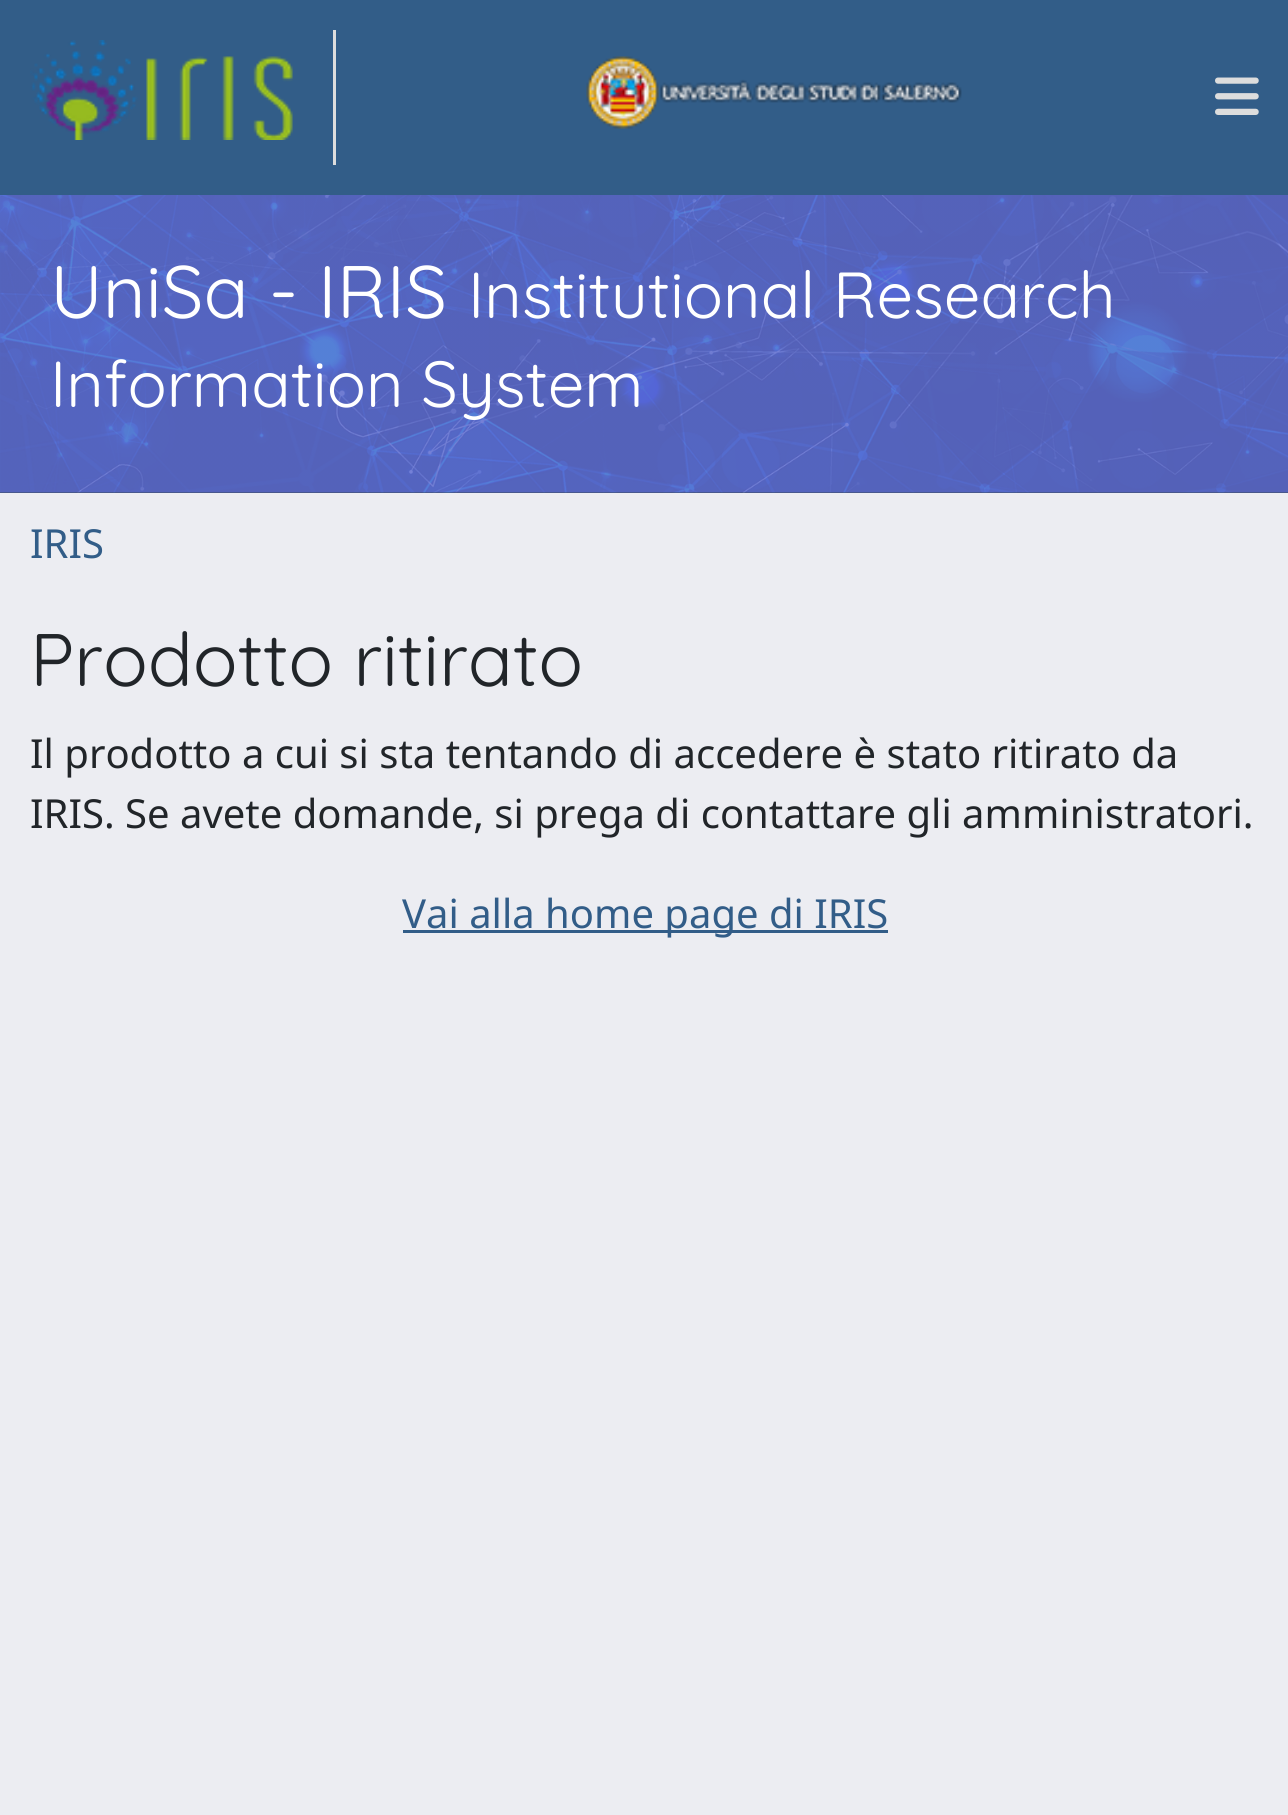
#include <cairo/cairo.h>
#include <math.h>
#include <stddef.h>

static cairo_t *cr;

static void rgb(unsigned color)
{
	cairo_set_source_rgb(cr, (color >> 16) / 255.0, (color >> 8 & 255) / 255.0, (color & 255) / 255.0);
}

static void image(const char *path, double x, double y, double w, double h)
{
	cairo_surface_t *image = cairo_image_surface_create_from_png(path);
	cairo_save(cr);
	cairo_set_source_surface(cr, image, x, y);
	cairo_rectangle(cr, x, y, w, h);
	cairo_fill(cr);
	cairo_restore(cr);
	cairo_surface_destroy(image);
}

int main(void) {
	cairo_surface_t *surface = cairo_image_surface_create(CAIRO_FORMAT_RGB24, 1288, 1815);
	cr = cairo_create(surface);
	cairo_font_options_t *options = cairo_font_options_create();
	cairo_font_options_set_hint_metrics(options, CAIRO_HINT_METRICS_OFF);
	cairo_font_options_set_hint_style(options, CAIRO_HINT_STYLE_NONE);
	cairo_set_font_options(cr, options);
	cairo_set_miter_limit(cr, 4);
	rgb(0xecedf2);
	cairo_paint(cr);
	rgb(0x325d88);
	cairo_rectangle(cr, 0, 0, 1288, 195);
	cairo_fill(cr);
	rgb(0xdddddd);
	cairo_rectangle(cr, 333, 30, 3, 135);
	cairo_fill(cr);
	image("img/1.png", 30, 40, 263, 100);
	image("img/2.png", 586, 56, 376, 73);
	image("img/3.png", 1215, 77, 44, 38);
	rgb(0x3a4b55);
	cairo_rectangle(cr, 0, 195, 1288, 298);
	cairo_fill(cr);
	image("img/4.png", 0, 195, 1288, 298);
	rgb(0x325d88);
	cairo_rectangle(cr, 403, 930, 485, 3);
	cairo_fill(cr);
	cairo_select_font_face(cr, "Quicksand", CAIRO_FONT_SLANT_NORMAL, CAIRO_FONT_WEIGHT_NORMAL);
	cairo_set_font_size(cr, 74.25);
	rgb(0xffffff);
	cairo_move_to(cr, 50, 318);
	cairo_show_text(cr, "UniSa - IRIS");
	cairo_set_font_size(cr, 65);
	cairo_move_to(cr, 468, 318);
	cairo_show_text(cr, "Institutional Research");
	cairo_move_to(cr, 50, 407);
	cairo_show_text(cr, "Information System");
	cairo_select_font_face(cr, "Noto Sans", CAIRO_FONT_SLANT_NORMAL, CAIRO_FONT_WEIGHT_NORMAL);
	cairo_set_font_size(cr, 40);
	rgb(0x325d88);
	cairo_move_to(cr, 30, 558);
	cairo_show_text(cr, "IRIS");
	cairo_select_font_face(cr, "Quicksand", CAIRO_FONT_SLANT_NORMAL, CAIRO_FONT_WEIGHT_NORMAL);
	cairo_set_font_size(cr, 74.25);
	rgb(0x212529);
	cairo_move_to(cr, 30, 686);
	cairo_show_text(cr, "Prodotto ritirato");
	cairo_select_font_face(cr, "Noto Sans", CAIRO_FONT_SLANT_NORMAL, CAIRO_FONT_WEIGHT_NORMAL);
	cairo_set_font_size(cr, 40);
	cairo_move_to(cr, 30, 768);
	cairo_show_text(cr, "Il prodotto a cui si sta tentando di accedere è stato ritirato da");
	cairo_move_to(cr, 30, 828);
	cairo_show_text(cr, "IRIS. Se avete domande, si prega di contattare gli amministratori.");
	rgb(0x325d88);
	cairo_move_to(cr, 402, 928);
	cairo_show_text(cr, "Vai alla home page di IRIS");
	cairo_surface_write_to_png(surface, "page.png");
	cairo_font_options_destroy(options);
	cairo_destroy(cr);
	cairo_surface_destroy(surface);
	return 0;
}
